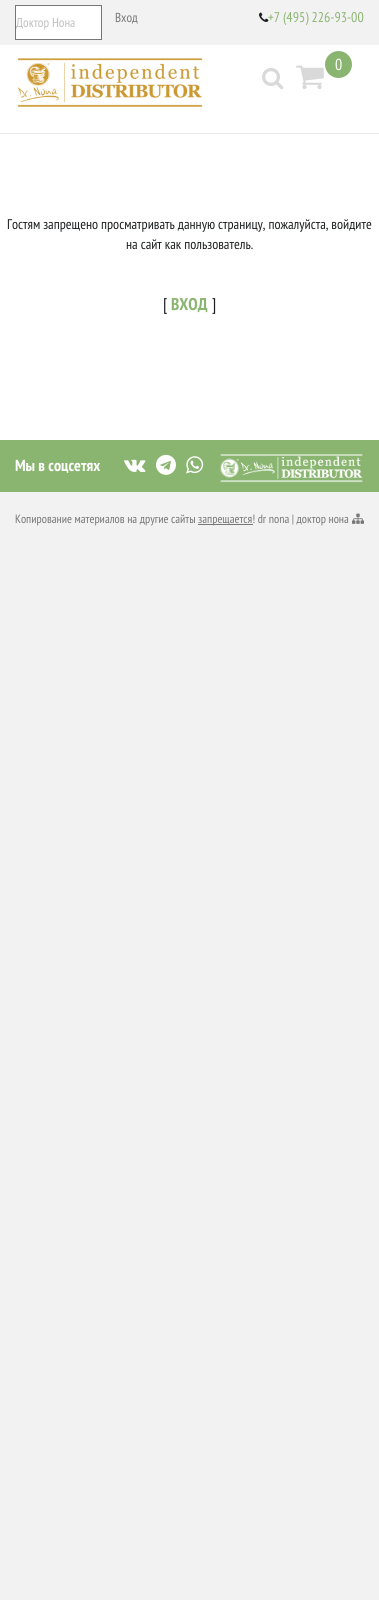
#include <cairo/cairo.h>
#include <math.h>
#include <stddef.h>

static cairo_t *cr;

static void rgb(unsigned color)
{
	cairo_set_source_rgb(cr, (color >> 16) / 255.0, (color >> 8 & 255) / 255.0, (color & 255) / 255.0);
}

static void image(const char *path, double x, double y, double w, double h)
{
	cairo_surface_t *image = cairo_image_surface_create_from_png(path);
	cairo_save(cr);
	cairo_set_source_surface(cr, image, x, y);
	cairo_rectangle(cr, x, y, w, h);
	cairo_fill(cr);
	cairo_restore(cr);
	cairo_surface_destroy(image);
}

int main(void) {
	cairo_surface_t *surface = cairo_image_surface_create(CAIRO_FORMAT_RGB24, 379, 1600);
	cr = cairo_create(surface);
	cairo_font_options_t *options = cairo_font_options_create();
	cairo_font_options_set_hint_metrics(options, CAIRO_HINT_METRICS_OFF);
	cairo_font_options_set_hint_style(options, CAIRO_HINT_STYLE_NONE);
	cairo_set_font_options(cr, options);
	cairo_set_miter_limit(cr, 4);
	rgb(0xf2f2f2);
	cairo_paint(cr);
	rgb(0xffffff);
	cairo_rectangle(cr, 0, 45, 379, 395);
	cairo_fill(cr);
	rgb(0xe8e8e8);
	cairo_rectangle(cr, 0, 133, 379, 1);
	cairo_fill(cr);
	rgb(0xffffff);
	cairo_rectangle(cr, 15.5, 5.5, 86, 34);
	cairo_fill_preserve(cr);
	rgb(0x777777);
	cairo_set_line_width(cr, 1);
	cairo_stroke(cr);
	image("img/1.png", 259, 12, 10, 10);
	image("img/2.png", 17, 58, 186, 49);
	image("img/3.png", 296, 65, 28, 24);
	rgb(0x8ab570);
	cairo_arc(cr, 338.5, 64.5, 13.5, 0, 2 * M_PI);
	cairo_fill(cr);
	image("img/4.png", 262, 68, 22, 22);
	cairo_rectangle(cr, 0, 440, 379, 52);
	cairo_fill(cr);
	image("img/5.png", 124, 459, 22, 13);
	image("img/6.png", 156, 454, 20, 21);
	image("img/7.png", 186, 456, 18, 18);
	image("img/8.png", 220, 454, 143, 29);
	rgb(0x777777);
	cairo_rectangle(cr, 198, 524, 55, 1);
	cairo_fill(cr);
	image("img/9.png", 352, 513, 12, 11);
	cairo_select_font_face(cr, "PT Sans Narrow", CAIRO_FONT_SLANT_NORMAL, CAIRO_FONT_WEIGHT_NORMAL);
	cairo_set_font_size(cr, 13);
	rgb(0xbfbfbf);
	cairo_move_to(cr, 16, 27);
	cairo_show_text(cr, "Доктор Нона");
	rgb(0x777777);
	cairo_move_to(cr, 115, 22);
	cairo_show_text(cr, "Вход");
	cairo_set_font_size(cr, 14);
	rgb(0x8ab570);
	cairo_move_to(cr, 268, 22);
	cairo_show_text(cr, "+7 (495) 226-93-00");
	cairo_set_font_size(cr, 16);
	rgb(0xffffff);
	cairo_move_to(cr, 335, 70);
	cairo_show_text(cr, "0");
	cairo_set_font_size(cr, 14);
	rgb(0x1d1f20);
	cairo_move_to(cr, 7, 229);
	cairo_show_text(cr, "Гостям запрещено просматривать данную страницу, пожалуйста, войдите");
	cairo_move_to(cr, 126, 249);
	cairo_show_text(cr, "на сайт как пользователь.");
	cairo_set_font_size(cr, 17);
	cairo_move_to(cr, 163, 310);
	cairo_show_text(cr, "[");
	cairo_select_font_face(cr, "PT Sans Narrow", CAIRO_FONT_SLANT_NORMAL, CAIRO_FONT_WEIGHT_BOLD);
	rgb(0x8ab570);
	cairo_move_to(cr, 171, 310);
	cairo_show_text(cr, "ВХОД");
	cairo_select_font_face(cr, "PT Sans Narrow", CAIRO_FONT_SLANT_NORMAL, CAIRO_FONT_WEIGHT_NORMAL);
	rgb(0x1d1f20);
	cairo_move_to(cr, 212, 310);
	cairo_show_text(cr, "]");
	cairo_select_font_face(cr, "PT Sans Narrow", CAIRO_FONT_SLANT_NORMAL, CAIRO_FONT_WEIGHT_BOLD);
	cairo_set_font_size(cr, 16);
	rgb(0xffffff);
	cairo_move_to(cr, 15, 471);
	cairo_show_text(cr, "Мы в соцсетях");
	cairo_select_font_face(cr, "PT Sans Narrow", CAIRO_FONT_SLANT_NORMAL, CAIRO_FONT_WEIGHT_NORMAL);
	cairo_set_font_size(cr, 12);
	rgb(0x777777);
	cairo_move_to(cr, 15, 523);
	cairo_show_text(cr, "Копирование материалов на другие сайты");
	cairo_move_to(cr, 198, 523);
	cairo_show_text(cr, "запрещается! dr nona | доктор нона");
	cairo_surface_write_to_png(surface, "page.png");
	cairo_font_options_destroy(options);
	cairo_destroy(cr);
	cairo_surface_destroy(surface);
	return 0;
}
